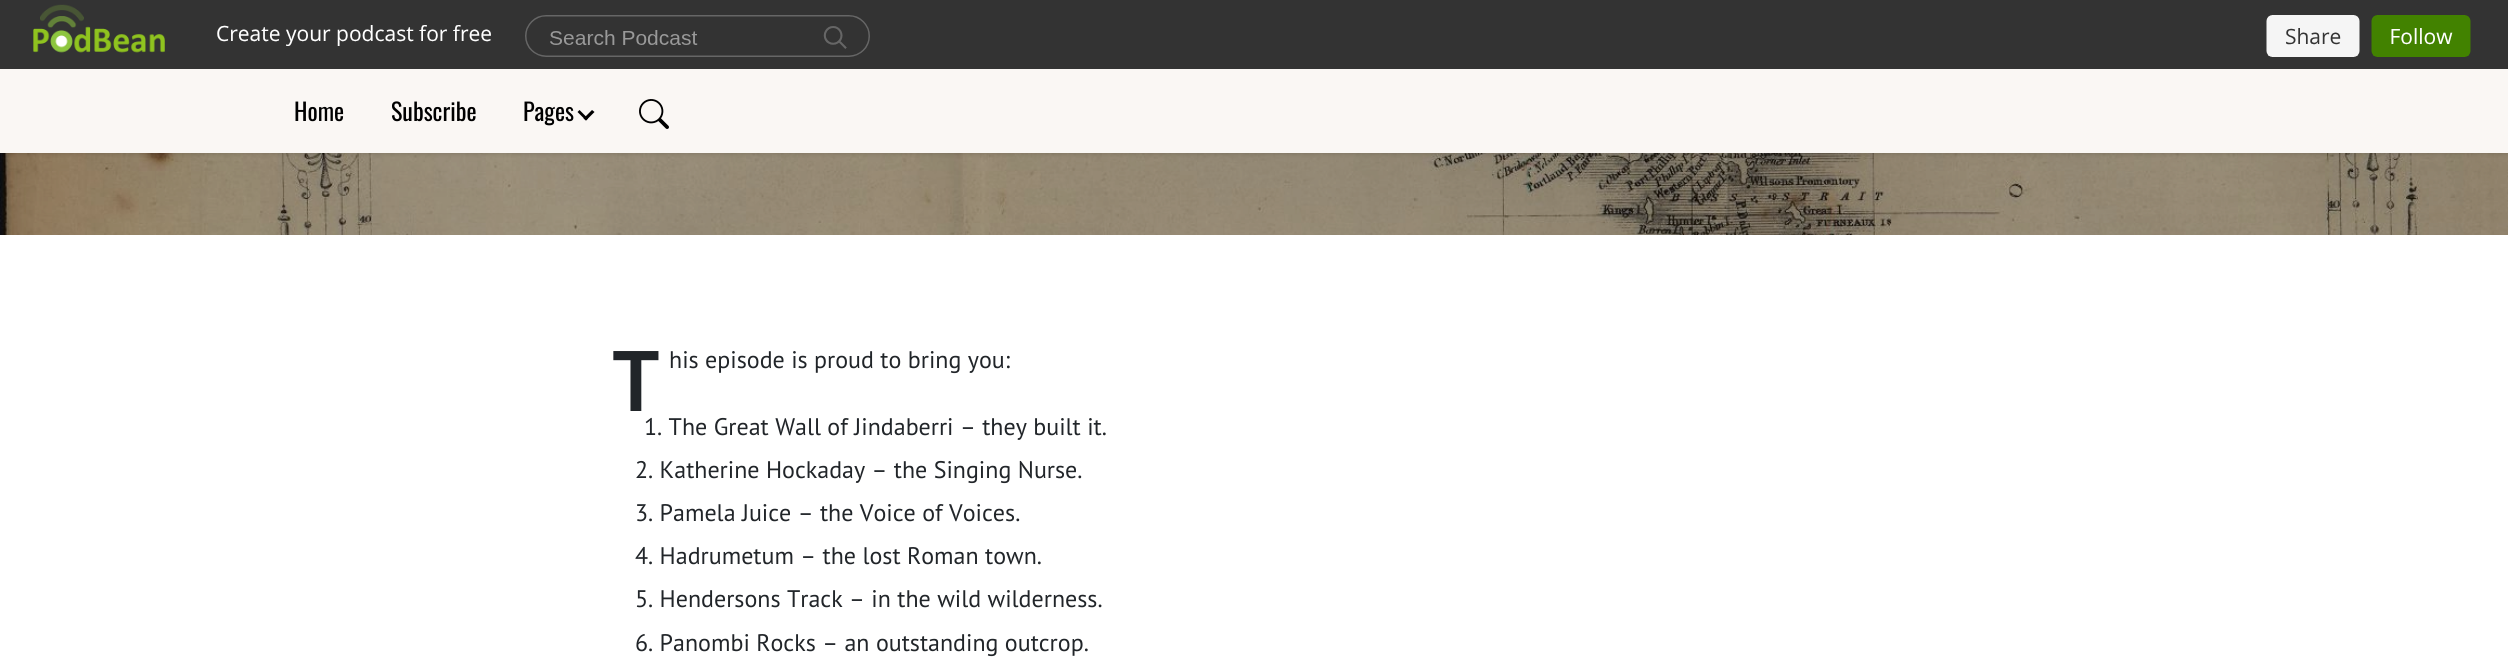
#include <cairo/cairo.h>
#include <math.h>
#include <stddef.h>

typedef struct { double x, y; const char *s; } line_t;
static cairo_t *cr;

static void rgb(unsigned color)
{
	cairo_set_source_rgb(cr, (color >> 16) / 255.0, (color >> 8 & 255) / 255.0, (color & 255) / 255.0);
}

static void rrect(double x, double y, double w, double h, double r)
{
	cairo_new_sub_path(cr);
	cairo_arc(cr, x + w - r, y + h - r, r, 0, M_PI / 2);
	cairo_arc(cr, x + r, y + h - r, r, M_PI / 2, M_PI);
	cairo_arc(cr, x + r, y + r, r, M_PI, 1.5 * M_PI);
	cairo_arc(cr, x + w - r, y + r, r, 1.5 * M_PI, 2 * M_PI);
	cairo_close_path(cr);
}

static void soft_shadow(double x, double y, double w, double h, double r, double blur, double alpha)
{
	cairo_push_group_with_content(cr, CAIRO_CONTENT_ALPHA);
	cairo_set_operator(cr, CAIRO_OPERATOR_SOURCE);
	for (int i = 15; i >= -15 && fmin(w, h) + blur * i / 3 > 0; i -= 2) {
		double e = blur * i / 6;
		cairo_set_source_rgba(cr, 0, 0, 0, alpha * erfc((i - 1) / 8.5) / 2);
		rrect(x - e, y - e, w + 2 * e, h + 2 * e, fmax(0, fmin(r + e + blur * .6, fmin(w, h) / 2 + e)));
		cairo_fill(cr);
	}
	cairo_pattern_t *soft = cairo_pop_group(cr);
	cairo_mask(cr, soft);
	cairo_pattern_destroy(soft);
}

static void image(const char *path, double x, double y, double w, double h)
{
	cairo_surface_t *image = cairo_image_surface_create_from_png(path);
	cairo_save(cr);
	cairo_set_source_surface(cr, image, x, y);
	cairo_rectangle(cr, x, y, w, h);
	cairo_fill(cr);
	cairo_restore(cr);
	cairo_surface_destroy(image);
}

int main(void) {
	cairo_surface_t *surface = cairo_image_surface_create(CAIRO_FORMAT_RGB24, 2508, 667);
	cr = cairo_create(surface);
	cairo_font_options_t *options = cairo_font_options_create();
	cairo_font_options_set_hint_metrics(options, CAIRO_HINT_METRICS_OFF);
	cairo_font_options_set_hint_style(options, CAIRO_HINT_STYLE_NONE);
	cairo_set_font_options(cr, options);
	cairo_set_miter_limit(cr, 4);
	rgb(0xffffff);
	cairo_paint(cr);
	image("img/3.png", 0, 153, 2508, 82);
	rgb(0x000000);
	soft_shadow(0, 69, 2508, 84, 0, 3, 0.2);
	rgb(0x333333);
	cairo_rectangle(cr, 0, 0, 2508, 69);
	cairo_fill(cr);
	image("img/1.png", 33, 4, 2438, 53);
	rgb(0xfaf7f4);
	cairo_rectangle(cr, 0, 69, 2508, 84);
	cairo_fill(cr);
	rgb(0x000000);
	cairo_new_path(cr);
	cairo_move_to(cr, 592, 110);
	cairo_line_to(cr, 594.5, 112);
	cairo_line_to(cr, 586, 120.5);
	cairo_line_to(cr, 583.5, 118.5);
	cairo_close_path(cr);
	cairo_fill(cr);
	cairo_new_path(cr);
	cairo_move_to(cr, 579.5, 110);
	cairo_line_to(cr, 588, 118.5);
	cairo_line_to(cr, 586, 120.5);
	cairo_line_to(cr, 577.5, 112);
	cairo_close_path(cr);
	cairo_fill(cr);
	image("img/2.png", 639, 99, 30, 30);
	cairo_select_font_face(cr, "Oswald", CAIRO_FONT_SLANT_NORMAL, CAIRO_FONT_WEIGHT_NORMAL);
	cairo_set_font_size(cr, 24);
	{
		static const line_t items[] = {
			{294, 121, "Home"},
			{391, 121, "Subscribe"},
			{523, 121, "Pages"},
		};
		for (size_t i = 0; i < sizeof items / sizeof *items; i++) {
			cairo_move_to(cr, items[i].x, items[i].y);
			cairo_show_text(cr, items[i].s);
		}
	}
	cairo_select_font_face(cr, "Noto Sans SemiBold", CAIRO_FONT_SLANT_NORMAL, CAIRO_FONT_WEIGHT_NORMAL);
	cairo_set_font_size(cr, 84);
	rgb(0x212529);
	cairo_move_to(cr, 612, 411);
	cairo_show_text(cr, "T");
	cairo_select_font_face(cr, "PT Sans", CAIRO_FONT_SLANT_NORMAL, CAIRO_FONT_WEIGHT_NORMAL);
	cairo_set_font_size(cr, 24);
	{
		static const line_t items[] = {
			{669, 368, "his episode is proud to bring you:"},
			{644, 435, "1. The Great Wall of Jindaberri – they built it."},
			{635, 478, "2. Katherine Hockaday – the Singing Nurse."},
			{635, 521, "3. Pamela Juice – the Voice of Voices."},
			{635, 564, "4. Hadrumetum – the lost Roman town."},
			{635, 607, "5. Hendersons Track – in the wild wilderness."},
			{635, 651, "6. Panombi Rocks – an outstanding outcrop."},
		};
		for (size_t i = 0; i < sizeof items / sizeof *items; i++) {
			cairo_move_to(cr, items[i].x, items[i].y);
			cairo_show_text(cr, items[i].s);
		}
	}
	cairo_surface_write_to_png(surface, "page.png");
	cairo_font_options_destroy(options);
	cairo_destroy(cr);
	cairo_surface_destroy(surface);
	return 0;
}
